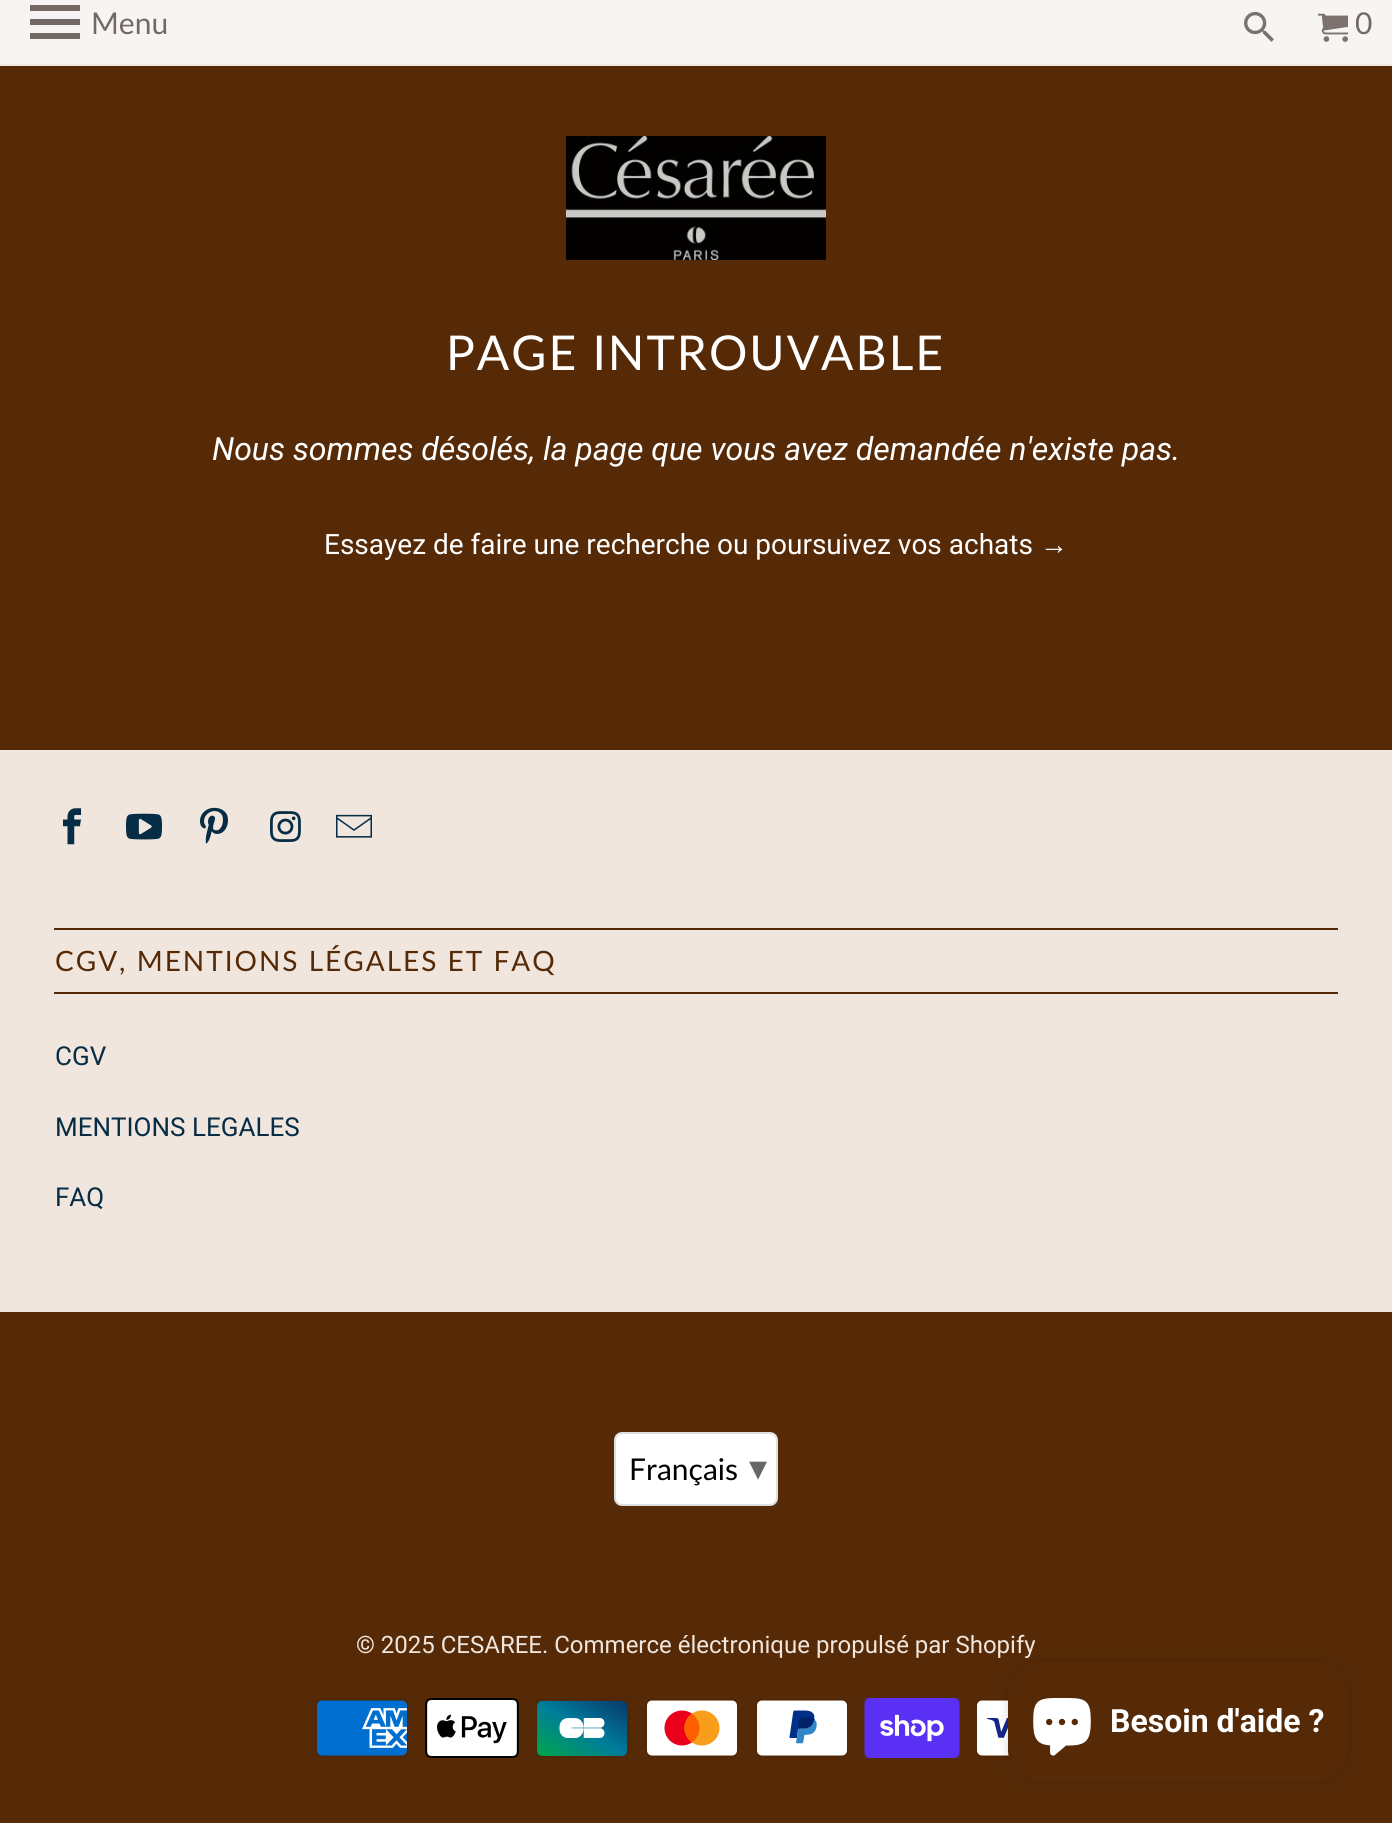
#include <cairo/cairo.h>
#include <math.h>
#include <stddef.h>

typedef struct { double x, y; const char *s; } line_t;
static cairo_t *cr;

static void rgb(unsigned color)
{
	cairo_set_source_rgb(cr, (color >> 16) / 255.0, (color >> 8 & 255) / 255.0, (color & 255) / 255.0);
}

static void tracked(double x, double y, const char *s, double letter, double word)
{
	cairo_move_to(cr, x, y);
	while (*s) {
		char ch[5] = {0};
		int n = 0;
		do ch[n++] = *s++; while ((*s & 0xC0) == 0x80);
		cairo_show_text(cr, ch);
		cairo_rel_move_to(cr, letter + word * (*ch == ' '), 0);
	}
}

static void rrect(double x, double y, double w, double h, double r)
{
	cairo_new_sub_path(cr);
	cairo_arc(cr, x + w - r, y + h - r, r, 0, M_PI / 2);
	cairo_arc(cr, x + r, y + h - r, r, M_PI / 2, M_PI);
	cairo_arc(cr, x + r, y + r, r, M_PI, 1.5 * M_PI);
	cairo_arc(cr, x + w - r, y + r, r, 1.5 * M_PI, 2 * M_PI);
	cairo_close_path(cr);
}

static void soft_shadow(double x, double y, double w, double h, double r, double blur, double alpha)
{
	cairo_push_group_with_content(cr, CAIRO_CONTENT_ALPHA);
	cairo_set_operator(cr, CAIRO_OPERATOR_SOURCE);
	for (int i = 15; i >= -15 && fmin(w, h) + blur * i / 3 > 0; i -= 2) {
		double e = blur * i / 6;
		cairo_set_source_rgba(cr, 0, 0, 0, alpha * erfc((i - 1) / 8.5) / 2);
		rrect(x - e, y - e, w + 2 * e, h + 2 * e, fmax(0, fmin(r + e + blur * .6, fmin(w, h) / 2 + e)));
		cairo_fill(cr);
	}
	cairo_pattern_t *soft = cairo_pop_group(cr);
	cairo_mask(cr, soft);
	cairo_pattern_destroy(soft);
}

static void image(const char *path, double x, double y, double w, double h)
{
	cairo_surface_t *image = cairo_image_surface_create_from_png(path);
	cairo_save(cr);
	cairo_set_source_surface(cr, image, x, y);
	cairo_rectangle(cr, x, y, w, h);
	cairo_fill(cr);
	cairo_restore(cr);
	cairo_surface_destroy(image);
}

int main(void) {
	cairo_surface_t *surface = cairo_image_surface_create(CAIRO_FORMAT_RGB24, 1392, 1823);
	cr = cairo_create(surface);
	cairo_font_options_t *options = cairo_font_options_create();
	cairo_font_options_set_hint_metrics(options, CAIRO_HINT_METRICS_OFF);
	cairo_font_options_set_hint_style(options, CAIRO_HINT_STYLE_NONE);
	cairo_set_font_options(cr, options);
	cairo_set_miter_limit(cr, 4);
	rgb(0x562a07);
	cairo_paint(cr);
	rgb(0xf7f4f3);
	cairo_rectangle(cr, 0, 0, 1392, 64);
	cairo_fill(cr);
	rgb(0xf2e8e3);
	cairo_rectangle(cr, 0, 64, 1392, 2);
	cairo_fill(cr);
	rgb(0x736964);
	cairo_new_path(cr);
	cairo_move_to(cr, 30, 39);
	cairo_line_to(cr, 80, 39);
	cairo_line_to(cr, 80, 33);
	cairo_line_to(cr, 30, 33);
	cairo_close_path(cr);
	cairo_move_to(cr, 30, 25);
	cairo_line_to(cr, 80, 25);
	cairo_line_to(cr, 80, 19);
	cairo_line_to(cr, 30, 19);
	cairo_close_path(cr);
	cairo_move_to(cr, 30, 5);
	cairo_line_to(cr, 30, 11);
	cairo_line_to(cr, 80, 11);
	cairo_line_to(cr, 80, 5);
	cairo_close_path(cr);
	cairo_fill(cr);
	image("img/1.png", 1244, 11, 30, 31);
	image("img/2.png", 1318, 13, 30, 29);
	image("img/3.png", 566, 136, 260, 124);
	rgb(0xf1e6dd);
	cairo_rectangle(cr, 0, 750, 1392, 562);
	cairo_fill(cr);
	image("img/4.png", 63, 808, 18, 37);
	image("img/5.png", 126, 813, 36, 27);
	image("img/6.png", 200, 807, 28, 37);
	image("img/7.png", 270, 811, 31, 31);
	image("img/8.png", 336, 814, 36, 24);
	rgb(0x562a07);
	cairo_rectangle(cr, 54, 928, 1284, 2);
	cairo_fill(cr);
	cairo_rectangle(cr, 54, 992, 1284, 2);
	cairo_fill(cr);
	rgb(0xffffff);
	rrect(615, 1433, 162, 72, 7);
	cairo_fill_preserve(cr);
	rgb(0xdce0e0);
	cairo_stroke(cr);
	image("img/9.png", 315, 1698, 94, 60);
	image("img/10.png", 425, 1698, 94, 60);
	image("img/11.png", 535, 1698, 95, 60);
	image("img/12.png", 645, 1698, 94, 60);
	image("img/13.png", 755, 1698, 94, 60);
	image("img/14.png", 864, 1698, 96, 60);
	image("img/15.png", 975, 1698, 34, 60);
	rgb(0x000000);
	soft_shadow(1008, 1662, 340, 120, 32, 5, 0.15);
	rgb(0x562a07);
	rrect(1008, 1662, 340, 120, 32);
	cairo_fill(cr);
	image("img/16.png", 1033, 1698, 58, 58);
	cairo_select_font_face(cr, "Lato", CAIRO_FONT_SLANT_NORMAL, CAIRO_FONT_WEIGHT_NORMAL);
	cairo_set_font_size(cr, 30);
	rgb(0x736964);
	cairo_move_to(cr, 91, 34);
	cairo_show_text(cr, "Menu");
	cairo_move_to(cr, 1355, 34);
	cairo_show_text(cr, "0");
	cairo_set_font_size(cr, 48);
	rgb(0xffffff);
	tracked(446, 370, "PAGE INTROUVABLE", 2, 0);
	cairo_select_font_face(cr, "Roboto", CAIRO_FONT_SLANT_ITALIC, CAIRO_FONT_WEIGHT_NORMAL);
	cairo_set_font_size(cr, 32);
	cairo_move_to(cr, 212, 460);
	cairo_show_text(cr, "Nous sommes désolés, la page que vous avez demandée n'existe pas.");
	cairo_select_font_face(cr, "Roboto", CAIRO_FONT_SLANT_NORMAL, CAIRO_FONT_WEIGHT_NORMAL);
	cairo_set_font_size(cr, 28);
	cairo_move_to(cr, 324, 554);
	cairo_show_text(cr, "Essayez de faire une recherche ou poursuivez vos achats");
	cairo_select_font_face(cr, "Liberation Sans", CAIRO_FONT_SLANT_NORMAL, CAIRO_FONT_WEIGHT_NORMAL);
	cairo_move_to(cr, 1040, 554);
	cairo_show_text(cr, "→");
	cairo_select_font_face(cr, "Lato", CAIRO_FONT_SLANT_NORMAL, CAIRO_FONT_WEIGHT_NORMAL);
	rgb(0x562a07);
	tracked(55, 971, "CGV, MENTIONS LÉGALES ET FAQ", 2, 0);
	cairo_select_font_face(cr, "Roboto", CAIRO_FONT_SLANT_NORMAL, CAIRO_FONT_WEIGHT_NORMAL);
	cairo_set_font_size(cr, 26);
	rgb(0x062c46);
	{
		static const line_t items[] = {
			{55, 1065, "CGV"},
			{55, 1136, "MENTIONS LEGALES"},
			{55, 1206, "FAQ"},
		};
		for (size_t i = 0; i < sizeof items / sizeof *items; i++) {
			cairo_move_to(cr, items[i].x, items[i].y);
			cairo_show_text(cr, items[i].s);
		}
	}
	cairo_select_font_face(cr, "Lato", CAIRO_FONT_SLANT_NORMAL, CAIRO_FONT_WEIGHT_NORMAL);
	cairo_set_font_size(cr, 30);
	rgb(0x000000);
	cairo_move_to(cr, 629, 1480);
	cairo_show_text(cr, "Français");
	cairo_select_font_face(cr, "DejaVu Sans", CAIRO_FONT_SLANT_NORMAL, CAIRO_FONT_WEIGHT_NORMAL);
	cairo_set_font_size(cr, 36);
	rgb(0x666666);
	cairo_move_to(cr, 749, 1480);
	cairo_show_text(cr, "▾");
	cairo_select_font_face(cr, "Roboto", CAIRO_FONT_SLANT_NORMAL, CAIRO_FONT_WEIGHT_NORMAL);
	cairo_set_font_size(cr, 24);
	rgb(0xf1e6dd);
	cairo_move_to(cr, 356, 1653);
	cairo_show_text(cr, "© 2025 CESAREE. Commerce électronique propulsé par Shopify");
	cairo_select_font_face(cr, "Roboto", CAIRO_FONT_SLANT_NORMAL, CAIRO_FONT_WEIGHT_BOLD);
	cairo_set_font_size(cr, 32);
	rgb(0xffffff);
	cairo_move_to(cr, 1110, 1732);
	cairo_show_text(cr, "Besoin d'aide ?");
	cairo_surface_write_to_png(surface, "page.png");
	cairo_font_options_destroy(options);
	cairo_destroy(cr);
	cairo_surface_destroy(surface);
	return 0;
}
